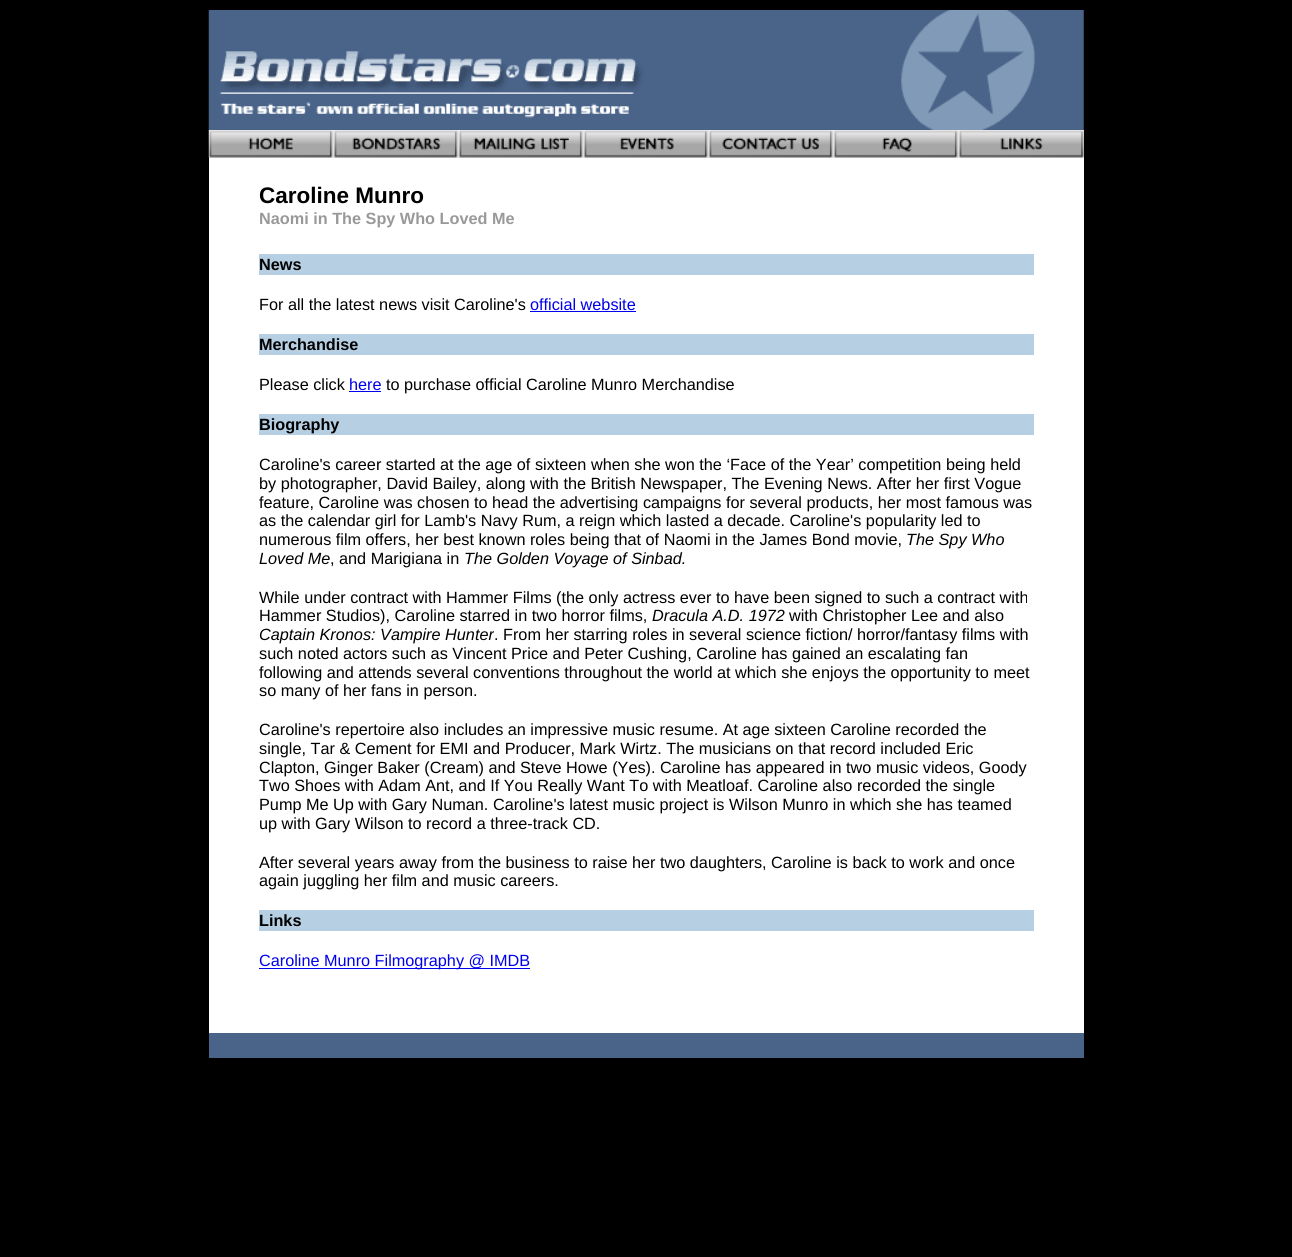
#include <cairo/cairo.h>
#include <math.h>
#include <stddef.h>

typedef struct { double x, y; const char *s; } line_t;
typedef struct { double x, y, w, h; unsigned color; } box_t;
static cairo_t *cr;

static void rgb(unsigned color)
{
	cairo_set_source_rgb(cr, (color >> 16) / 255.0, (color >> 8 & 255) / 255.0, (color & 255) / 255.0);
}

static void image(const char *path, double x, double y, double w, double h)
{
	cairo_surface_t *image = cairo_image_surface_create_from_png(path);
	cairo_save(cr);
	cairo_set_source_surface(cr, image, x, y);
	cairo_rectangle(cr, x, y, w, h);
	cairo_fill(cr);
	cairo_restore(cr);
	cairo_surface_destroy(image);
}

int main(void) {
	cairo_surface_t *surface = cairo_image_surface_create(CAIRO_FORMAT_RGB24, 1292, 1257);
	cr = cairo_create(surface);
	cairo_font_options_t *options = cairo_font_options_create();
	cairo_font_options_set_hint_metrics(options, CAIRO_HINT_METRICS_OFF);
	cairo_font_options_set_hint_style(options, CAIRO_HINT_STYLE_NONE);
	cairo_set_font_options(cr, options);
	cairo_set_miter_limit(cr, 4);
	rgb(0x000000);
	cairo_paint(cr);
	image("img/1.png", 208, 10, 876, 120);
	rgb(0xeaeaea);
	cairo_rectangle(cr, 209, 130, 875, 28);
	cairo_fill(cr);
	image("img/2.png", 208, 130, 125, 28);
	image("img/3.png", 333, 130, 125, 28);
	image("img/4.png", 458, 130, 125, 28);
	image("img/5.png", 583, 130, 125, 28);
	image("img/6.png", 708, 130, 125, 28);
	image("img/7.png", 833, 130, 125, 28);
	image("img/8.png", 958, 130, 126, 28);
	{
		static const box_t items[] = {
			{209, 158, 875, 875, 0xffffff},
			{259, 254, 775, 21, 0xb7cfe3},
			{530, 311, 106, 1, 0x0000ee},
			{259, 334, 775, 21, 0xb7cfe3},
			{349, 391, 32, 1, 0x0000ee},
			{259, 414, 775, 21, 0xb7cfe3},
			{259, 910, 775, 21, 0xb7cfe3},
			{259, 968, 271, 1, 0x0000ee},
			{209, 1033, 875, 25, 0x496389},
		};
		for (size_t i = 0; i < sizeof items / sizeof *items; i++) {
			rgb(items[i].color);
			cairo_rectangle(cr, items[i].x, items[i].y, items[i].w, items[i].h);
			cairo_fill(cr);
		}
	}
	cairo_select_font_face(cr, "Liberation Sans", CAIRO_FONT_SLANT_NORMAL, CAIRO_FONT_WEIGHT_BOLD);
	cairo_set_font_size(cr, 22.5);
	rgb(0x000000);
	cairo_move_to(cr, 259, 203);
	cairo_show_text(cr, "Caroline Munro");
	cairo_set_font_size(cr, 16.25);
	rgb(0x999999);
	cairo_move_to(cr, 259, 224);
	cairo_show_text(cr, "Naomi in The Spy Who Loved Me");
	rgb(0x000000);
	cairo_move_to(cr, 259, 270);
	cairo_show_text(cr, "News");
	cairo_select_font_face(cr, "Liberation Sans", CAIRO_FONT_SLANT_NORMAL, CAIRO_FONT_WEIGHT_NORMAL);
	cairo_move_to(cr, 259, 310);
	cairo_show_text(cr, "For all the latest news visit Caroline's");
	rgb(0x0000ee);
	cairo_move_to(cr, 530, 310);
	cairo_show_text(cr, "official website");
	cairo_select_font_face(cr, "Liberation Sans", CAIRO_FONT_SLANT_NORMAL, CAIRO_FONT_WEIGHT_BOLD);
	rgb(0x000000);
	cairo_move_to(cr, 259, 350);
	cairo_show_text(cr, "Merchandise");
	cairo_select_font_face(cr, "Liberation Sans", CAIRO_FONT_SLANT_NORMAL, CAIRO_FONT_WEIGHT_NORMAL);
	cairo_move_to(cr, 259, 390);
	cairo_show_text(cr, "Please click");
	rgb(0x0000ee);
	cairo_move_to(cr, 349, 390);
	cairo_show_text(cr, "here");
	rgb(0x000000);
	cairo_move_to(cr, 386, 390);
	cairo_show_text(cr, "to purchase official Caroline Munro Merchandise");
	cairo_select_font_face(cr, "Liberation Sans", CAIRO_FONT_SLANT_NORMAL, CAIRO_FONT_WEIGHT_BOLD);
	cairo_move_to(cr, 259, 430);
	cairo_show_text(cr, "Biography");
	cairo_select_font_face(cr, "Liberation Sans", CAIRO_FONT_SLANT_NORMAL, CAIRO_FONT_WEIGHT_NORMAL);
	{
		static const line_t items[] = {
			{259, 470, "Caroline's career started at the age of sixteen when she won the ‘Face of the Year’ competition being held"},
			{259, 489, "by photographer, David Bailey, along with the British Newspaper, The Evening News. After her first Vogue"},
			{259, 508, "feature, Caroline was chosen to head the advertising campaigns for several products, her most famous was"},
			{259, 526, "as the calendar girl for Lamb's Navy Rum, a reign which lasted a decade. Caroline's popularity led to"},
			{259, 545, "numerous film offers, her best known roles being that of Naomi in the James Bond movie,"},
		};
		for (size_t i = 0; i < sizeof items / sizeof *items; i++) {
			cairo_move_to(cr, items[i].x, items[i].y);
			cairo_show_text(cr, items[i].s);
		}
	}
	cairo_select_font_face(cr, "Liberation Sans", CAIRO_FONT_SLANT_ITALIC, CAIRO_FONT_WEIGHT_NORMAL);
	cairo_move_to(cr, 906, 545);
	cairo_show_text(cr, "The Spy Who");
	cairo_move_to(cr, 259, 564);
	cairo_show_text(cr, "Loved Me");
	cairo_select_font_face(cr, "Liberation Sans", CAIRO_FONT_SLANT_NORMAL, CAIRO_FONT_WEIGHT_NORMAL);
	cairo_move_to(cr, 330, 564);
	cairo_show_text(cr, ", and Marigiana in");
	cairo_select_font_face(cr, "Liberation Sans", CAIRO_FONT_SLANT_ITALIC, CAIRO_FONT_WEIGHT_NORMAL);
	cairo_move_to(cr, 464, 564);
	cairo_show_text(cr, "The Golden Voyage of Sinbad.");
	cairo_select_font_face(cr, "Liberation Sans", CAIRO_FONT_SLANT_NORMAL, CAIRO_FONT_WEIGHT_NORMAL);
	cairo_move_to(cr, 259, 603);
	cairo_show_text(cr, "While under contract with Hammer Films (the only actress ever to have been signed to such a contract with");
	cairo_move_to(cr, 259, 621);
	cairo_show_text(cr, "Hammer Studios), Caroline starred in two horror films,");
	cairo_select_font_face(cr, "Liberation Sans", CAIRO_FONT_SLANT_ITALIC, CAIRO_FONT_WEIGHT_NORMAL);
	cairo_move_to(cr, 652, 621);
	cairo_show_text(cr, "Dracula A.D. 1972");
	cairo_select_font_face(cr, "Liberation Sans", CAIRO_FONT_SLANT_NORMAL, CAIRO_FONT_WEIGHT_NORMAL);
	cairo_move_to(cr, 789, 621);
	cairo_show_text(cr, "with Christopher Lee and also");
	cairo_select_font_face(cr, "Liberation Sans", CAIRO_FONT_SLANT_ITALIC, CAIRO_FONT_WEIGHT_NORMAL);
	cairo_move_to(cr, 259, 640);
	cairo_show_text(cr, "Captain Kronos: Vampire Hunter");
	cairo_select_font_face(cr, "Liberation Sans", CAIRO_FONT_SLANT_NORMAL, CAIRO_FONT_WEIGHT_NORMAL);
	{
		static const line_t items[] = {
			{494, 640, ". From her starring roles in several science fiction/ horror/fantasy films with"},
			{259, 659, "such noted actors such as Vincent Price and Peter Cushing, Caroline has gained an escalating fan"},
			{259, 678, "following and attends several conventions throughout the world at which she enjoys the opportunity to meet"},
			{259, 696, "so many of her fans in person."},
			{259, 735, "Caroline's repertoire also includes an impressive music resume. At age sixteen Caroline recorded the"},
			{259, 754, "single, Tar & Cement for EMI and Producer, Mark Wirtz. The musicians on that record included Eric"},
			{259, 773, "Clapton, Ginger Baker (Cream) and Steve Howe (Yes). Caroline has appeared in two music videos, Goody"},
			{259, 791, "Two Shoes with Adam Ant, and If You Really Want To with Meatloaf. Caroline also recorded the single"},
			{259, 810, "Pump Me Up with Gary Numan. Caroline's latest music project is Wilson Munro in which she has teamed"},
			{259, 829, "up with Gary Wilson to record a three-track CD."},
			{259, 868, "After several years away from the business to raise her two daughters, Caroline is back to work and once"},
			{259, 886, "again juggling her film and music careers."},
		};
		for (size_t i = 0; i < sizeof items / sizeof *items; i++) {
			cairo_move_to(cr, items[i].x, items[i].y);
			cairo_show_text(cr, items[i].s);
		}
	}
	cairo_select_font_face(cr, "Liberation Sans", CAIRO_FONT_SLANT_NORMAL, CAIRO_FONT_WEIGHT_BOLD);
	cairo_move_to(cr, 259, 926);
	cairo_show_text(cr, "Links");
	cairo_select_font_face(cr, "Liberation Sans", CAIRO_FONT_SLANT_NORMAL, CAIRO_FONT_WEIGHT_NORMAL);
	rgb(0x0000ee);
	cairo_move_to(cr, 259, 966);
	cairo_show_text(cr, "Caroline Munro Filmography @ IMDB");
	cairo_surface_write_to_png(surface, "page.png");
	cairo_font_options_destroy(options);
	cairo_destroy(cr);
	cairo_surface_destroy(surface);
	return 0;
}
